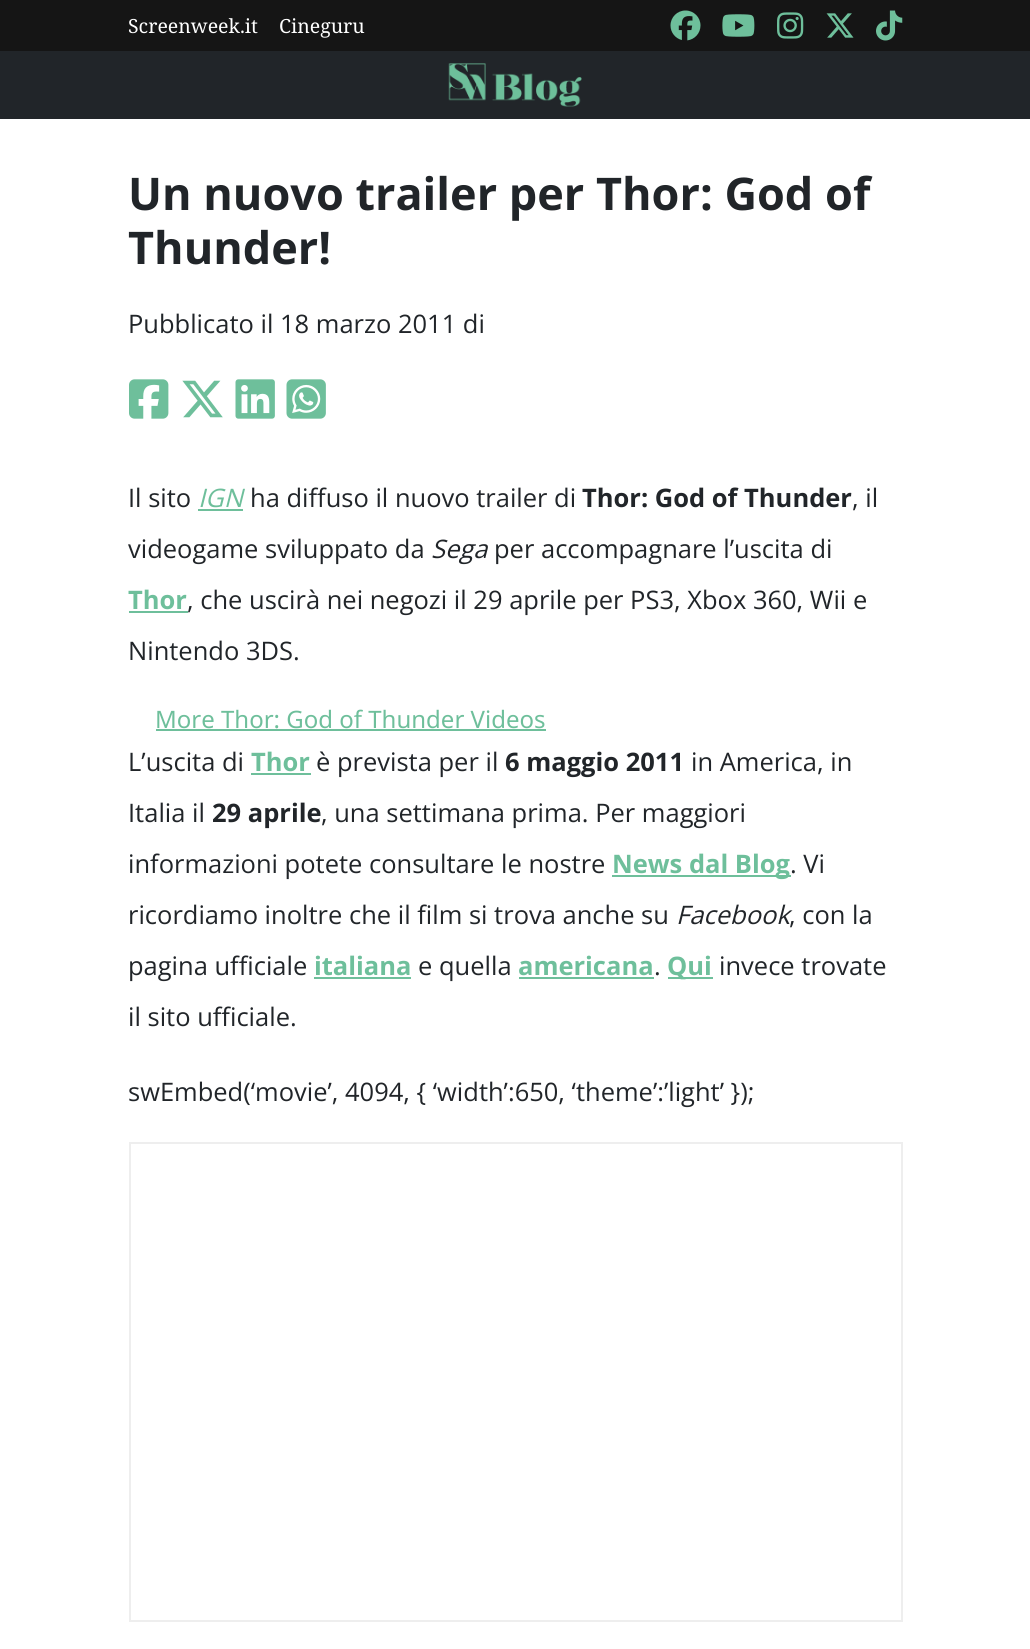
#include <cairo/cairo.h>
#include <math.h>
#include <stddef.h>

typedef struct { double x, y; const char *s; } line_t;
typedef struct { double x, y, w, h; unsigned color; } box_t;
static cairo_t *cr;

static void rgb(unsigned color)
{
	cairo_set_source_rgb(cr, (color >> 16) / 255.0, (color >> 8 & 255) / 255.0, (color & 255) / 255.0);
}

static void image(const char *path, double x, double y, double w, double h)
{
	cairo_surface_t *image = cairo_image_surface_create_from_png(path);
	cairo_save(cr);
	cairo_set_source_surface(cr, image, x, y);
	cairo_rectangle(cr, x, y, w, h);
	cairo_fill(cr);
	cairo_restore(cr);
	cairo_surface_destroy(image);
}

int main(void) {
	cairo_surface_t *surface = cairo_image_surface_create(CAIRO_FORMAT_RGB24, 1030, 1649);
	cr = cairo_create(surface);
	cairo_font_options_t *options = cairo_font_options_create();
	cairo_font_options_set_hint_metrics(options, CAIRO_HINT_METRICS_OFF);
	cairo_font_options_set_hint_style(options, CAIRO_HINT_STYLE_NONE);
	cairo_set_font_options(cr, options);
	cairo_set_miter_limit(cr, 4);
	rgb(0xffffff);
	cairo_paint(cr);
	rgb(0x151515);
	cairo_rectangle(cr, 0, 0, 1030, 51);
	cairo_fill(cr);
	image("img/1.png", 670, 10, 31, 31);
	image("img/2.png", 722, 14, 33, 23);
	image("img/3.png", 777, 12, 27, 27);
	image("img/4.png", 826, 13, 28, 25);
	image("img/5.png", 876, 10, 27, 31);
	rgb(0x212529);
	cairo_rectangle(cr, 0, 51, 1030, 68);
	cairo_fill(cr);
	image("img/6.png", 448, 63, 134, 44);
	image("img/7.png", 129, 379, 40, 40);
	image("img/8.png", 182, 380, 41, 38);
	image("img/9.png", 235, 379, 40, 40);
	image("img/10.png", 286, 379, 40, 40);
	{
		static const box_t items[] = {
			{198, 509, 45, 2, 0x6ebf9b},
			{129, 611, 59, 2, 0x6ebf9b},
			{156, 729, 390, 2, 0x6ebf9b},
			{251, 773, 60, 2, 0x6ebf9b},
			{612, 875, 179, 2, 0x6ebf9b},
			{314, 977, 97, 2, 0x6ebf9b},
			{519, 977, 135, 2, 0x6ebf9b},
			{668, 977, 45, 2, 0x6ebf9b},
		};
		for (size_t i = 0; i < sizeof items / sizeof *items; i++) {
			rgb(items[i].color);
			cairo_rectangle(cr, items[i].x, items[i].y, items[i].w, items[i].h);
			cairo_fill(cr);
		}
	}
	cairo_rectangle(cr, 130, 1143, 772, 478);
	rgb(0xeeeeee);
	cairo_stroke(cr);
	cairo_select_font_face(cr, "Noto Serif", CAIRO_FONT_SLANT_NORMAL, CAIRO_FONT_WEIGHT_NORMAL);
	cairo_set_font_size(cr, 19.5);
	rgb(0xffffff);
	cairo_move_to(cr, 128, 33);
	cairo_show_text(cr, "Screenweek.it");
	cairo_move_to(cr, 279, 33);
	cairo_show_text(cr, "Cineguru");
	cairo_select_font_face(cr, "Open Sans", CAIRO_FONT_SLANT_NORMAL, CAIRO_FONT_WEIGHT_BOLD);
	cairo_set_font_size(cr, 45);
	rgb(0x212529);
	cairo_move_to(cr, 128, 210);
	cairo_show_text(cr, "Un nuovo trailer per Thor: God of");
	cairo_move_to(cr, 128, 264);
	cairo_show_text(cr, "Thunder!");
	cairo_select_font_face(cr, "Open Sans", CAIRO_FONT_SLANT_NORMAL, CAIRO_FONT_WEIGHT_NORMAL);
	cairo_set_font_size(cr, 25.5);
	cairo_move_to(cr, 128, 333);
	cairo_show_text(cr, "Pubblicato il 18 marzo 2011 di");
	cairo_move_to(cr, 128, 507);
	cairo_show_text(cr, "Il sito");
	cairo_select_font_face(cr, "Open Sans", CAIRO_FONT_SLANT_ITALIC, CAIRO_FONT_WEIGHT_NORMAL);
	rgb(0x6ebf9b);
	cairo_move_to(cr, 198, 507);
	cairo_show_text(cr, "IGN");
	cairo_select_font_face(cr, "Open Sans", CAIRO_FONT_SLANT_NORMAL, CAIRO_FONT_WEIGHT_NORMAL);
	rgb(0x212529);
	cairo_move_to(cr, 250, 507);
	cairo_show_text(cr, "ha diffuso il nuovo trailer di");
	cairo_select_font_face(cr, "Open Sans", CAIRO_FONT_SLANT_NORMAL, CAIRO_FONT_WEIGHT_BOLD);
	cairo_move_to(cr, 582, 507);
	cairo_show_text(cr, "Thor: God of Thunder");
	cairo_select_font_face(cr, "Open Sans", CAIRO_FONT_SLANT_NORMAL, CAIRO_FONT_WEIGHT_NORMAL);
	cairo_move_to(cr, 852, 507);
	cairo_show_text(cr, ", il");
	cairo_move_to(cr, 128, 558);
	cairo_show_text(cr, "videogame sviluppato da");
	cairo_select_font_face(cr, "Open Sans", CAIRO_FONT_SLANT_ITALIC, CAIRO_FONT_WEIGHT_NORMAL);
	cairo_move_to(cr, 431, 558);
	cairo_show_text(cr, "Sega");
	cairo_select_font_face(cr, "Open Sans", CAIRO_FONT_SLANT_NORMAL, CAIRO_FONT_WEIGHT_NORMAL);
	cairo_move_to(cr, 494, 558);
	cairo_show_text(cr, "per accompagnare l’uscita di");
	cairo_select_font_face(cr, "Open Sans", CAIRO_FONT_SLANT_NORMAL, CAIRO_FONT_WEIGHT_BOLD);
	rgb(0x6ebf9b);
	cairo_move_to(cr, 128, 609);
	cairo_show_text(cr, "Thor");
	cairo_select_font_face(cr, "Open Sans", CAIRO_FONT_SLANT_NORMAL, CAIRO_FONT_WEIGHT_NORMAL);
	rgb(0x212529);
	cairo_move_to(cr, 187, 609);
	cairo_show_text(cr, ", che uscirà nei negozi il 29 aprile per PS3, Xbox 360, Wii e");
	cairo_move_to(cr, 128, 660);
	cairo_show_text(cr, "Nintendo 3DS.");
	cairo_select_font_face(cr, "Noto Sans", CAIRO_FONT_SLANT_NORMAL, CAIRO_FONT_WEIGHT_NORMAL);
	cairo_set_font_size(cr, 24);
	rgb(0x6ebf9b);
	cairo_move_to(cr, 155, 728);
	cairo_show_text(cr, "More Thor: God of Thunder Videos");
	cairo_select_font_face(cr, "Open Sans", CAIRO_FONT_SLANT_NORMAL, CAIRO_FONT_WEIGHT_NORMAL);
	cairo_set_font_size(cr, 25.5);
	rgb(0x212529);
	cairo_move_to(cr, 128, 771);
	cairo_show_text(cr, "L’uscita di");
	cairo_select_font_face(cr, "Open Sans", CAIRO_FONT_SLANT_NORMAL, CAIRO_FONT_WEIGHT_BOLD);
	rgb(0x6ebf9b);
	cairo_move_to(cr, 251, 771);
	cairo_show_text(cr, "Thor");
	cairo_select_font_face(cr, "Open Sans", CAIRO_FONT_SLANT_NORMAL, CAIRO_FONT_WEIGHT_NORMAL);
	rgb(0x212529);
	cairo_move_to(cr, 316, 771);
	cairo_show_text(cr, "è prevista per il");
	cairo_select_font_face(cr, "Open Sans", CAIRO_FONT_SLANT_NORMAL, CAIRO_FONT_WEIGHT_BOLD);
	cairo_move_to(cr, 505, 771);
	cairo_show_text(cr, "6 maggio 2011");
	cairo_select_font_face(cr, "Open Sans", CAIRO_FONT_SLANT_NORMAL, CAIRO_FONT_WEIGHT_NORMAL);
	cairo_move_to(cr, 691, 771);
	cairo_show_text(cr, "in America, in");
	cairo_move_to(cr, 128, 822);
	cairo_show_text(cr, "Italia il");
	cairo_select_font_face(cr, "Open Sans", CAIRO_FONT_SLANT_NORMAL, CAIRO_FONT_WEIGHT_BOLD);
	cairo_move_to(cr, 212, 822);
	cairo_show_text(cr, "29 aprile");
	cairo_select_font_face(cr, "Open Sans", CAIRO_FONT_SLANT_NORMAL, CAIRO_FONT_WEIGHT_NORMAL);
	cairo_move_to(cr, 321, 822);
	cairo_show_text(cr, ", una settimana prima. Per maggiori");
	cairo_move_to(cr, 128, 873);
	cairo_show_text(cr, "informazioni potete consultare le nostre");
	cairo_select_font_face(cr, "Open Sans", CAIRO_FONT_SLANT_NORMAL, CAIRO_FONT_WEIGHT_BOLD);
	rgb(0x6ebf9b);
	cairo_move_to(cr, 612, 873);
	cairo_show_text(cr, "News dal Blog");
	cairo_select_font_face(cr, "Open Sans", CAIRO_FONT_SLANT_NORMAL, CAIRO_FONT_WEIGHT_NORMAL);
	rgb(0x212529);
	cairo_move_to(cr, 790, 873);
	cairo_show_text(cr, ". Vi");
	cairo_move_to(cr, 128, 924);
	cairo_show_text(cr, "ricordiamo inoltre che il film si trova anche su");
	cairo_select_font_face(cr, "Open Sans", CAIRO_FONT_SLANT_ITALIC, CAIRO_FONT_WEIGHT_NORMAL);
	cairo_move_to(cr, 676, 924);
	cairo_show_text(cr, "Facebook");
	cairo_select_font_face(cr, "Open Sans", CAIRO_FONT_SLANT_NORMAL, CAIRO_FONT_WEIGHT_NORMAL);
	cairo_move_to(cr, 789, 924);
	cairo_show_text(cr, ", con la");
	cairo_move_to(cr, 128, 975);
	cairo_show_text(cr, "pagina ufficiale");
	cairo_select_font_face(cr, "Open Sans", CAIRO_FONT_SLANT_NORMAL, CAIRO_FONT_WEIGHT_BOLD);
	rgb(0x6ebf9b);
	cairo_move_to(cr, 314, 975);
	cairo_show_text(cr, "italiana");
	cairo_select_font_face(cr, "Open Sans", CAIRO_FONT_SLANT_NORMAL, CAIRO_FONT_WEIGHT_NORMAL);
	rgb(0x212529);
	cairo_move_to(cr, 418, 975);
	cairo_show_text(cr, "e quella");
	cairo_select_font_face(cr, "Open Sans", CAIRO_FONT_SLANT_NORMAL, CAIRO_FONT_WEIGHT_BOLD);
	rgb(0x6ebf9b);
	cairo_move_to(cr, 518, 975);
	cairo_show_text(cr, "americana");
	cairo_select_font_face(cr, "Open Sans", CAIRO_FONT_SLANT_NORMAL, CAIRO_FONT_WEIGHT_NORMAL);
	rgb(0x212529);
	cairo_move_to(cr, 654, 975);
	cairo_show_text(cr, ".");
	cairo_select_font_face(cr, "Open Sans", CAIRO_FONT_SLANT_NORMAL, CAIRO_FONT_WEIGHT_BOLD);
	rgb(0x6ebf9b);
	cairo_move_to(cr, 667, 975);
	cairo_show_text(cr, "Qui");
	cairo_select_font_face(cr, "Open Sans", CAIRO_FONT_SLANT_NORMAL, CAIRO_FONT_WEIGHT_NORMAL);
	rgb(0x212529);
	{
		static const line_t items[] = {
			{719, 975, "invece trovate"},
			{128, 1026, "il sito ufficiale."},
			{128, 1101, "swEmbed(‘movie’, 4094, { ‘width’:650, ‘theme’:’light’ });"},
		};
		for (size_t i = 0; i < sizeof items / sizeof *items; i++) {
			cairo_move_to(cr, items[i].x, items[i].y);
			cairo_show_text(cr, items[i].s);
		}
	}
	cairo_surface_write_to_png(surface, "page.png");
	cairo_font_options_destroy(options);
	cairo_destroy(cr);
	cairo_surface_destroy(surface);
	return 0;
}
